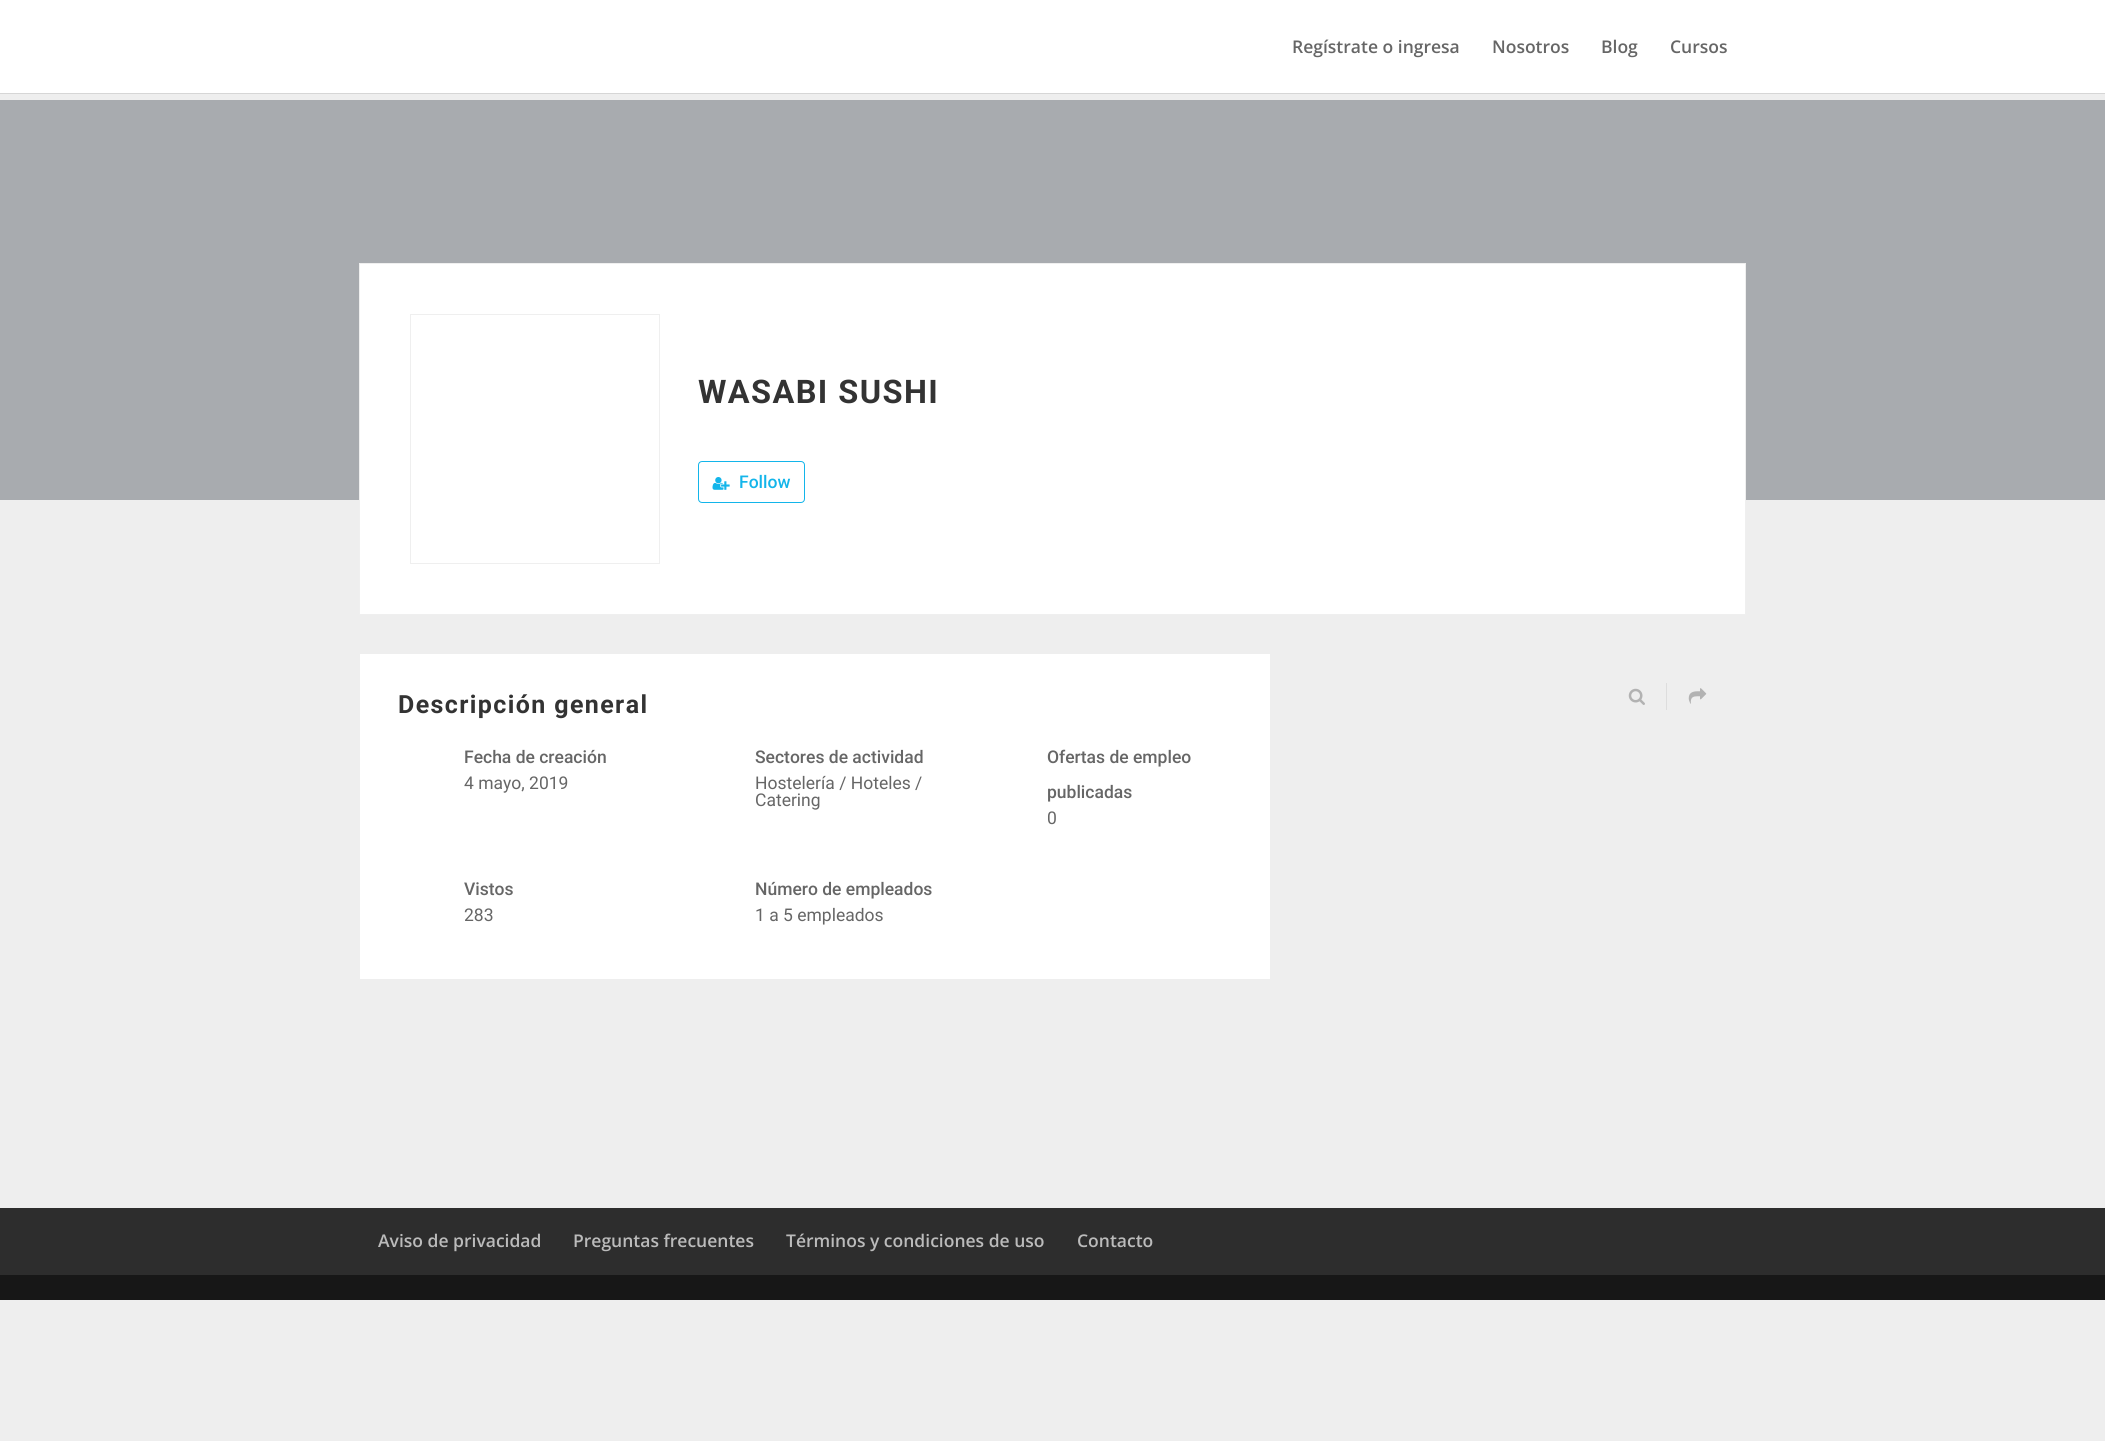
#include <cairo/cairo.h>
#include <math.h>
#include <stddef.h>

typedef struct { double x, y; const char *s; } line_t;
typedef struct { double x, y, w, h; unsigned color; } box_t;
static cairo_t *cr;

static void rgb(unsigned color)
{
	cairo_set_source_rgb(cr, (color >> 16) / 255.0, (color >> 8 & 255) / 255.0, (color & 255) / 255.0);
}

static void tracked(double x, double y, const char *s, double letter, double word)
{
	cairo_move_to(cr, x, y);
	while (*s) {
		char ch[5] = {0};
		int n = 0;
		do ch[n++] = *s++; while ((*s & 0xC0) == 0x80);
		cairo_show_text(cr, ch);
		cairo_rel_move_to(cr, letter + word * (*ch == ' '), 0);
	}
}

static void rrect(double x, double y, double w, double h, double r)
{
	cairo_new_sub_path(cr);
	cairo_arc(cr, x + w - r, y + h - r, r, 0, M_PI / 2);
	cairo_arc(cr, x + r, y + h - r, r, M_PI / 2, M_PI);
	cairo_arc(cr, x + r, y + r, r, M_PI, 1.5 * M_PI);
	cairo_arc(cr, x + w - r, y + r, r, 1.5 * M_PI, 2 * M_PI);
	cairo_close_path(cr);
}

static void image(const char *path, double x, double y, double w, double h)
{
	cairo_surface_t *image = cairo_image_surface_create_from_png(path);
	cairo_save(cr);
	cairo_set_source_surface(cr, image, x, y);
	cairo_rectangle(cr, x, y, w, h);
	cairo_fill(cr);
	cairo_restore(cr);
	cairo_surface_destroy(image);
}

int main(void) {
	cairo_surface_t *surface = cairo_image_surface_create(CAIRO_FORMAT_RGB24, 2105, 1441);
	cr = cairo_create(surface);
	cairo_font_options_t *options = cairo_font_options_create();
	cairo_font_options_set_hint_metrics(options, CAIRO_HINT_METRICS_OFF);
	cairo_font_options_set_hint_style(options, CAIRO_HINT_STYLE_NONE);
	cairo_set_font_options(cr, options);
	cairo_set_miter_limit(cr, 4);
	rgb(0xeeeeee);
	cairo_paint(cr);
	{
		static const box_t items[] = {
			{0, 93, 2105, 1, 0xd6d6d6},
			{0, 0, 2105, 93, 0xffffff},
			{0, 100, 2105, 400, 0xa8abaf},
		};
		for (size_t i = 0; i < sizeof items / sizeof *items; i++) {
			rgb(items[i].color);
			cairo_rectangle(cr, items[i].x, items[i].y, items[i].w, items[i].h);
			cairo_fill(cr);
		}
	}
	rgb(0xffffff);
	cairo_rectangle(cr, 359.5, 263.5, 1386, 351);
	cairo_fill_preserve(cr);
	rgb(0xefefef);
	cairo_set_line_width(cr, 1);
	cairo_stroke(cr);
	cairo_rectangle(cr, 410.5, 314.5, 249, 249);
	cairo_stroke(cr);
	rrect(698.5, 461.5, 106, 41, 3.5);
	rgb(0x13b5ea);
	cairo_stroke(cr);
	image("img/1.png", 712, 477, 18, 13);
	rgb(0xffffff);
	cairo_rectangle(cr, 360, 654, 910, 325);
	cairo_fill(cr);
	image("img/2.png", 1628, 688, 17, 17);
	rgb(0xdddddd);
	cairo_rectangle(cr, 1666, 683, 1, 27);
	cairo_fill(cr);
	image("img/3.png", 1688, 688, 19, 16);
	rgb(0x2d2d2d);
	cairo_rectangle(cr, 0, 1208, 2105, 67);
	cairo_fill(cr);
	rgb(0x171717);
	cairo_rectangle(cr, 0, 1275, 2105, 25);
	cairo_fill(cr);
	cairo_select_font_face(cr, "Open Sans SemiBold", CAIRO_FONT_SLANT_NORMAL, CAIRO_FONT_WEIGHT_NORMAL);
	cairo_set_font_size(cr, 17.5);
	rgb(0x666666);
	{
		static const line_t items[] = {
			{1292, 53, "Regístrate o ingresa"},
			{1492, 53, "Nosotros"},
			{1601, 53, "Blog"},
			{1670, 53, "Cursos"},
		};
		for (size_t i = 0; i < sizeof items / sizeof *items; i++) {
			cairo_move_to(cr, items[i].x, items[i].y);
			cairo_show_text(cr, items[i].s);
		}
	}
	cairo_select_font_face(cr, "Roboto", CAIRO_FONT_SLANT_NORMAL, CAIRO_FONT_WEIGHT_BOLD);
	cairo_set_font_size(cr, 32.5);
	rgb(0x333333);
	tracked(698, 403, "WASABI SUSHI", 1.4, 0);
	cairo_select_font_face(cr, "Roboto Medium", CAIRO_FONT_SLANT_NORMAL, CAIRO_FONT_WEIGHT_NORMAL);
	cairo_set_font_size(cr, 17.5);
	rgb(0x13b5ea);
	cairo_move_to(cr, 739, 488);
	cairo_show_text(cr, "Follow");
	cairo_select_font_face(cr, "Roboto", CAIRO_FONT_SLANT_NORMAL, CAIRO_FONT_WEIGHT_BOLD);
	cairo_set_font_size(cr, 25);
	rgb(0x333333);
	tracked(398, 713, "Descripción general", 1.4, 0);
	cairo_select_font_face(cr, "Roboto Medium", CAIRO_FONT_SLANT_NORMAL, CAIRO_FONT_WEIGHT_NORMAL);
	cairo_set_font_size(cr, 17.5);
	rgb(0x666666);
	cairo_move_to(cr, 464, 763);
	cairo_show_text(cr, "Fecha de creación");
	cairo_select_font_face(cr, "Roboto", CAIRO_FONT_SLANT_NORMAL, CAIRO_FONT_WEIGHT_NORMAL);
	cairo_move_to(cr, 464, 789);
	cairo_show_text(cr, "4 mayo, 2019");
	cairo_select_font_face(cr, "Roboto Medium", CAIRO_FONT_SLANT_NORMAL, CAIRO_FONT_WEIGHT_NORMAL);
	cairo_move_to(cr, 755, 763);
	cairo_show_text(cr, "Sectores de actividad");
	cairo_select_font_face(cr, "Roboto", CAIRO_FONT_SLANT_NORMAL, CAIRO_FONT_WEIGHT_NORMAL);
	cairo_move_to(cr, 755, 789);
	cairo_show_text(cr, "Hostelería / Hoteles /");
	cairo_move_to(cr, 755, 806);
	cairo_show_text(cr, "Catering");
	cairo_select_font_face(cr, "Roboto Medium", CAIRO_FONT_SLANT_NORMAL, CAIRO_FONT_WEIGHT_NORMAL);
	cairo_move_to(cr, 1047, 763);
	cairo_show_text(cr, "Ofertas de empleo");
	cairo_move_to(cr, 1047, 798);
	cairo_show_text(cr, "publicadas");
	cairo_select_font_face(cr, "Roboto", CAIRO_FONT_SLANT_NORMAL, CAIRO_FONT_WEIGHT_NORMAL);
	cairo_move_to(cr, 1047, 824);
	cairo_show_text(cr, "0");
	cairo_select_font_face(cr, "Roboto Medium", CAIRO_FONT_SLANT_NORMAL, CAIRO_FONT_WEIGHT_NORMAL);
	cairo_move_to(cr, 464, 895);
	cairo_show_text(cr, "Vistos");
	cairo_select_font_face(cr, "Roboto", CAIRO_FONT_SLANT_NORMAL, CAIRO_FONT_WEIGHT_NORMAL);
	cairo_move_to(cr, 464, 921);
	cairo_show_text(cr, "283");
	cairo_select_font_face(cr, "Roboto Medium", CAIRO_FONT_SLANT_NORMAL, CAIRO_FONT_WEIGHT_NORMAL);
	cairo_move_to(cr, 755, 895);
	cairo_show_text(cr, "Número de empleados");
	cairo_select_font_face(cr, "Roboto", CAIRO_FONT_SLANT_NORMAL, CAIRO_FONT_WEIGHT_NORMAL);
	cairo_move_to(cr, 755, 921);
	cairo_show_text(cr, "1 a 5 empleados");
	cairo_select_font_face(cr, "Open Sans SemiBold", CAIRO_FONT_SLANT_NORMAL, CAIRO_FONT_WEIGHT_NORMAL);
	rgb(0xbbbbbb);
	{
		static const line_t items[] = {
			{378, 1247, "Aviso de privacidad"},
			{573, 1247, "Preguntas frecuentes"},
			{786, 1247, "Términos y condiciones de uso"},
			{1077, 1247, "Contacto"},
		};
		for (size_t i = 0; i < sizeof items / sizeof *items; i++) {
			cairo_move_to(cr, items[i].x, items[i].y);
			cairo_show_text(cr, items[i].s);
		}
	}
	cairo_surface_write_to_png(surface, "page.png");
	cairo_font_options_destroy(options);
	cairo_destroy(cr);
	cairo_surface_destroy(surface);
	return 0;
}
